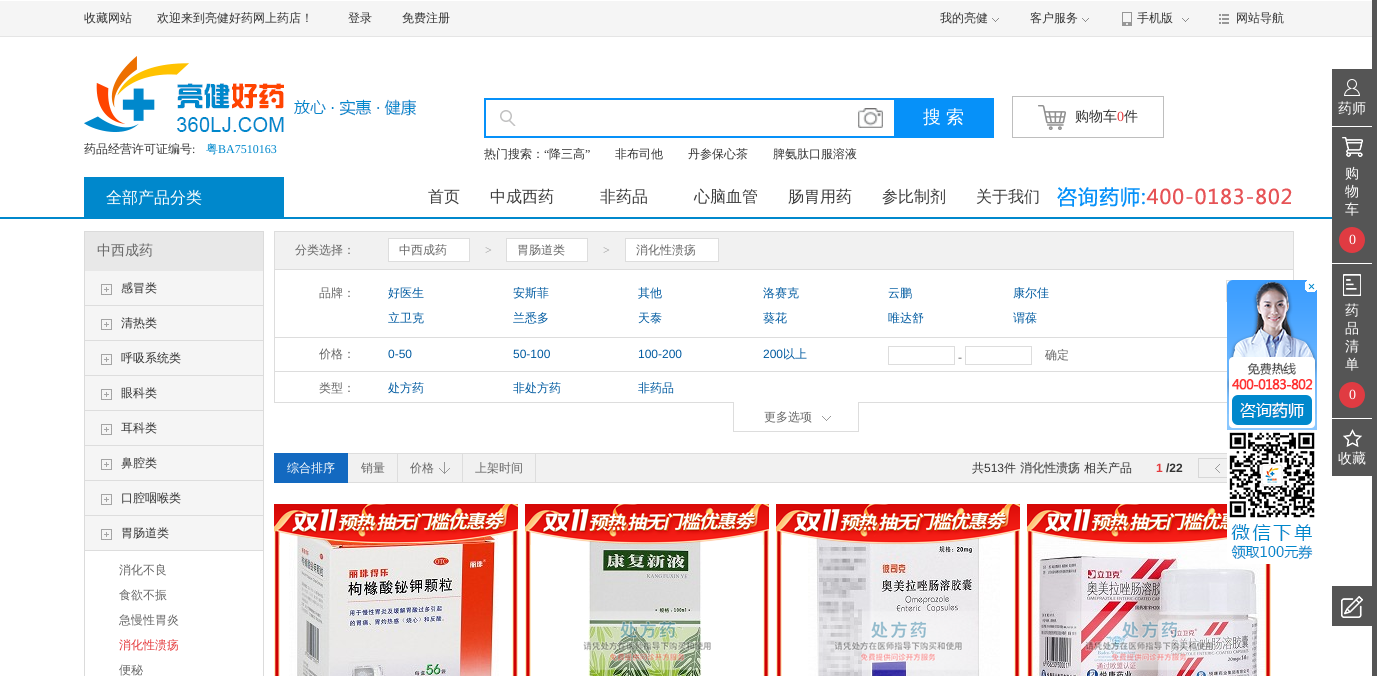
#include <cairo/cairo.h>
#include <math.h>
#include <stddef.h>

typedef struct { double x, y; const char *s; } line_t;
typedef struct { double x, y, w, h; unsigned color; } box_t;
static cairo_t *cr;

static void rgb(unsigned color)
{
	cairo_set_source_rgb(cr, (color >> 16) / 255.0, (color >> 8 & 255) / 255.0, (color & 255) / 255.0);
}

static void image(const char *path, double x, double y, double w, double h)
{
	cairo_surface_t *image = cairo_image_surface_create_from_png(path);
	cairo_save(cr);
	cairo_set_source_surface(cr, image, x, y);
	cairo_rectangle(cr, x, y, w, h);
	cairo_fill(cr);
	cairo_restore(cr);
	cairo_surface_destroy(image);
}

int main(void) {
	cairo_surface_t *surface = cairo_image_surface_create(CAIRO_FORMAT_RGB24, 1377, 676);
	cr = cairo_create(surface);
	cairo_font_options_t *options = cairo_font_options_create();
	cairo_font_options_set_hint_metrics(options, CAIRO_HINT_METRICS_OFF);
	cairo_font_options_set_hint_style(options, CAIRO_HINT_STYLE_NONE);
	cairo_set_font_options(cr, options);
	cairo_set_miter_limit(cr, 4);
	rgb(0xffffff);
	cairo_paint(cr);
	rgb(0xf5f5f5);
	cairo_rectangle(cr, 0, 1, 1372, 35);
	cairo_fill(cr);
	rgb(0xe5e5e5);
	cairo_rectangle(cr, 0, 36, 1377, 1);
	cairo_fill(cr);
	image("img/1.png", 992, 18, 7, 4);
	image("img/1.png", 1082, 18, 7, 4);
	image("img/2.png", 1122, 12, 10, 14);
	image("img/1.png", 1182, 18, 7, 4);
	image("img/3.png", 1219, 14, 10, 10);
	{
		static const box_t items[] = {
			{484, 98, 410, 2, 0x0691f9},
			{484, 136, 410, 2, 0x0691f9},
			{484, 98, 2, 40, 0x0691f9},
		};
		for (size_t i = 0; i < sizeof items / sizeof *items; i++) {
			rgb(items[i].color);
			cairo_rectangle(cr, items[i].x, items[i].y, items[i].w, items[i].h);
			cairo_fill(cr);
		}
	}
	image("img/4.png", 500, 110, 16, 16);
	image("img/5.png", 858, 108, 25, 20);
	cairo_rectangle(cr, 894, 98, 100, 40);
	cairo_fill(cr);
	cairo_rectangle(cr, 1012.5, 96.5, 151, 41);
	rgb(0xbebebe);
	cairo_set_line_width(cr, 1);
	cairo_stroke(cr);
	image("img/6.png", 1038, 105, 28, 25);
	image("img/7.png", 84, 56, 332, 76);
	rgb(0x555555);
	cairo_rectangle(cr, 1332, 69, 40, 57);
	cairo_fill(cr);
	image("img/8.png", 1344, 79, 16, 17);
	cairo_rectangle(cr, 1332, 127, 40, 136);
	cairo_fill(cr);
	image("img/9.png", 1342, 137, 21, 20);
	rgb(0xe03b42);
	cairo_arc(cr, 1352, 240, 13, 0, 2 * M_PI);
	cairo_fill(cr);
	rgb(0x555555);
	cairo_rectangle(cr, 1332, 264, 40, 154);
	cairo_fill(cr);
	image("img/10.png", 1343, 274, 18, 22);
	rgb(0xe03b42);
	cairo_arc(cr, 1352, 395, 13, 0, 2 * M_PI);
	cairo_fill(cr);
	rgb(0x555555);
	cairo_rectangle(cr, 1332, 419, 40, 57);
	cairo_fill(cr);
	image("img/11.png", 1343, 429, 19, 18);
	cairo_rectangle(cr, 1332, 586, 40, 40);
	cairo_fill(cr);
	image("img/12.png", 1341, 596, 22, 22);
	{
		static const box_t items[] = {
			{1372, 0, 5, 676, 0x555555},
			{0, 217, 1332, 2, 0x0088cc},
			{84, 177, 200, 40, 0x0088cc},
		};
		for (size_t i = 0; i < sizeof items / sizeof *items; i++) {
			rgb(items[i].color);
			cairo_rectangle(cr, items[i].x, items[i].y, items[i].w, items[i].h);
			cairo_fill(cr);
		}
	}
	image("img/13.png", 1057, 187, 235, 20);
	{
		static const box_t items[] = {
			{263, 231, 1, 445, 0xdbdbdb},
			{84, 231, 1, 445, 0xdbdbdb},
			{85, 232, 178, 39, 0xe8e8e8},
			{85, 231, 178, 1, 0xdbdbdb},
			{85, 271, 178, 34, 0xf5f5f5},
			{85, 305, 178, 1, 0xdddddd},
		};
		for (size_t i = 0; i < sizeof items / sizeof *items; i++) {
			rgb(items[i].color);
			cairo_rectangle(cr, items[i].x, items[i].y, items[i].w, items[i].h);
			cairo_fill(cr);
		}
	}
	image("img/14.png", 101, 284, 11, 11);
	rgb(0xf5f5f5);
	cairo_rectangle(cr, 85, 306, 178, 34);
	cairo_fill(cr);
	rgb(0xdddddd);
	cairo_rectangle(cr, 85, 340, 178, 1);
	cairo_fill(cr);
	image("img/14.png", 101, 319, 11, 11);
	rgb(0xf5f5f5);
	cairo_rectangle(cr, 85, 341, 178, 34);
	cairo_fill(cr);
	rgb(0xdddddd);
	cairo_rectangle(cr, 85, 375, 178, 1);
	cairo_fill(cr);
	image("img/14.png", 101, 354, 11, 11);
	rgb(0xf5f5f5);
	cairo_rectangle(cr, 85, 376, 178, 34);
	cairo_fill(cr);
	rgb(0xdddddd);
	cairo_rectangle(cr, 85, 410, 178, 1);
	cairo_fill(cr);
	image("img/14.png", 101, 389, 11, 11);
	rgb(0xf5f5f5);
	cairo_rectangle(cr, 85, 411, 178, 34);
	cairo_fill(cr);
	rgb(0xdddddd);
	cairo_rectangle(cr, 85, 445, 178, 1);
	cairo_fill(cr);
	image("img/14.png", 101, 424, 11, 11);
	rgb(0xf5f5f5);
	cairo_rectangle(cr, 85, 446, 178, 34);
	cairo_fill(cr);
	rgb(0xdddddd);
	cairo_rectangle(cr, 85, 480, 178, 1);
	cairo_fill(cr);
	image("img/14.png", 101, 459, 11, 11);
	rgb(0xf5f5f5);
	cairo_rectangle(cr, 85, 481, 178, 34);
	cairo_fill(cr);
	rgb(0xdddddd);
	cairo_rectangle(cr, 85, 515, 178, 1);
	cairo_fill(cr);
	image("img/14.png", 101, 494, 11, 11);
	rgb(0xf5f5f5);
	cairo_rectangle(cr, 85, 516, 178, 34);
	cairo_fill(cr);
	rgb(0xdddddd);
	cairo_rectangle(cr, 85, 550, 178, 1);
	cairo_fill(cr);
	image("img/14.png", 101, 529, 11, 11);
	{
		static const box_t items[] = {
			{274, 231, 1020, 1, 0xdddddd},
			{1293, 231, 1, 49, 0xdddddd},
			{274, 231, 1, 172, 0xdddddd},
			{275, 232, 1018, 37, 0xf1f1f1},
			{275, 269, 1018, 1, 0xdddddd},
		};
		for (size_t i = 0; i < sizeof items / sizeof *items; i++) {
			rgb(items[i].color);
			cairo_rectangle(cr, items[i].x, items[i].y, items[i].w, items[i].h);
			cairo_fill(cr);
		}
	}
	rgb(0xffffff);
	cairo_rectangle(cr, 388.5, 238.5, 81, 23);
	cairo_fill_preserve(cr);
	rgb(0xdddddd);
	cairo_stroke(cr);
	rgb(0xffffff);
	cairo_rectangle(cr, 506.5, 238.5, 81, 23);
	cairo_fill_preserve(cr);
	rgb(0xdddddd);
	cairo_stroke(cr);
	rgb(0xffffff);
	cairo_rectangle(cr, 625.5, 238.5, 93, 23);
	cairo_fill_preserve(cr);
	rgb(0xdddddd);
	cairo_stroke(cr);
	cairo_rectangle(cr, 275, 337, 952, 1);
	cairo_fill(cr);
	cairo_rectangle(cr, 1226.5, 280.5, 50, 21);
	cairo_stroke(cr);
	cairo_rectangle(cr, 275, 371, 952, 1);
	cairo_fill(cr);
	cairo_rectangle(cr, 888.5, 346.5, 66, 18);
	cairo_stroke(cr);
	cairo_rectangle(cr, 965.5, 346.5, 66, 18);
	cairo_stroke(cr);
	{
		static const box_t items[] = {
			{275, 402, 952, 1, 0xdddddd},
			{733, 402, 126, 1, 0xffffff},
			{858, 402, 1, 30, 0xdddddd},
			{733, 431, 126, 1, 0xdddddd},
			{733, 402, 1, 30, 0xdddddd},
		};
		for (size_t i = 0; i < sizeof items / sizeof *items; i++) {
			rgb(items[i].color);
			cairo_rectangle(cr, items[i].x, items[i].y, items[i].w, items[i].h);
			cairo_fill(cr);
		}
	}
	image("img/15.png", 822, 416, 9, 5);
	rgb(0xf1f1f1);
	cairo_rectangle(cr, 348, 454, 879, 28);
	cairo_fill(cr);
	cairo_rectangle(cr, 274.5, 453.5, 1019, 29);
	rgb(0xdddddd);
	cairo_stroke(cr);
	{
		static const box_t items[] = {
			{274, 453, 74, 30, 0x1369c0},
			{397, 453, 1, 30, 0xdddddd},
			{462, 453, 1, 30, 0xdddddd},
		};
		for (size_t i = 0; i < sizeof items / sizeof *items; i++) {
			rgb(items[i].color);
			cairo_rectangle(cr, items[i].x, items[i].y, items[i].w, items[i].h);
			cairo_fill(cr);
		}
	}
	image("img/16.png", 439, 462, 11, 12);
	{
		static const box_t items[] = {
			{535, 453, 1, 30, 0xdddddd},
			{1198, 458, 29, 1, 0xd7d7d7},
			{1198, 477, 29, 1, 0xd7d7d7},
			{1198, 458, 1, 20, 0xd7d7d7},
		};
		for (size_t i = 0; i < sizeof items / sizeof *items; i++) {
			rgb(items[i].color);
			cairo_rectangle(cr, items[i].x, items[i].y, items[i].w, items[i].h);
			cairo_fill(cr);
		}
	}
	image("img/17.png", 1215, 464, 5, 9);
	image("img/19.png", 289, 533, 210, 143);
	image("img/18.png", 274, 504, 244, 172);
	image("img/21.png", 588, 540, 114, 136);
	image("img/20.png", 525, 504, 244, 172);
	image("img/22.png", 583, 610, 128, 61);
	image("img/24.png", 808, 534, 192, 142);
	image("img/23.png", 776, 504, 244, 172);
	image("img/25.png", 817, 610, 162, 61);
	image("img/27.png", 1032, 531, 234, 145);
	image("img/26.png", 1027, 504, 244, 172);
	image("img/28.png", 1063, 610, 171, 61);
	image("img/29.png", 1227, 280, 90, 284);
	image("img/30.png", 1305, 280, 12, 12);
	cairo_select_font_face(cr, "WenQuanYi Zen Hei Medium", CAIRO_FONT_SLANT_NORMAL, CAIRO_FONT_WEIGHT_NORMAL);
	cairo_set_font_size(cr, 12);
	rgb(0x333333);
	{
		static const line_t items[] = {
			{84, 22, "收藏网站"},
			{157, 22, "欢迎来到亮健好药网上药店！"},
			{348, 22, "登录"},
			{402, 22, "免费注册"},
			{940, 22, "我的亮健"},
			{1030, 22, "客户服务"},
			{1137, 22, "手机版"},
			{1236, 22, "网站导航"},
		};
		for (size_t i = 0; i < sizeof items / sizeof *items; i++) {
			cairo_move_to(cr, items[i].x, items[i].y);
			cairo_show_text(cr, items[i].s);
		}
	}
	cairo_set_font_size(cr, 18);
	rgb(0xffffff);
	cairo_move_to(cr, 923, 123);
	cairo_show_text(cr, "搜");
	cairo_move_to(cr, 946, 123);
	cairo_show_text(cr, "索");
	cairo_set_font_size(cr, 14);
	rgb(0x333333);
	cairo_move_to(cr, 1075, 121);
	cairo_show_text(cr, "购物车");
	cairo_select_font_face(cr, "Liberation Serif", CAIRO_FONT_SLANT_NORMAL, CAIRO_FONT_WEIGHT_NORMAL);
	rgb(0xe4393c);
	cairo_move_to(cr, 1117, 121);
	cairo_show_text(cr, "0");
	cairo_select_font_face(cr, "WenQuanYi Zen Hei Medium", CAIRO_FONT_SLANT_NORMAL, CAIRO_FONT_WEIGHT_NORMAL);
	rgb(0x333333);
	cairo_move_to(cr, 1124, 121);
	cairo_show_text(cr, "件");
	cairo_set_font_size(cr, 12);
	cairo_move_to(cr, 84, 153);
	cairo_show_text(cr, "药品经营许可证编号");
	cairo_select_font_face(cr, "Liberation Serif", CAIRO_FONT_SLANT_NORMAL, CAIRO_FONT_WEIGHT_NORMAL);
	cairo_move_to(cr, 192, 153);
	cairo_show_text(cr, ":");
	cairo_select_font_face(cr, "WenQuanYi Zen Hei Medium", CAIRO_FONT_SLANT_NORMAL, CAIRO_FONT_WEIGHT_NORMAL);
	rgb(0x0088cc);
	cairo_move_to(cr, 206, 153);
	cairo_show_text(cr, "粤");
	cairo_select_font_face(cr, "Liberation Serif", CAIRO_FONT_SLANT_NORMAL, CAIRO_FONT_WEIGHT_NORMAL);
	cairo_move_to(cr, 218, 153);
	cairo_show_text(cr, "BA7510163");
	cairo_select_font_face(cr, "WenQuanYi Zen Hei Medium", CAIRO_FONT_SLANT_NORMAL, CAIRO_FONT_WEIGHT_NORMAL);
	rgb(0x333333);
	cairo_move_to(cr, 484, 158);
	cairo_show_text(cr, "热门搜索：");
	cairo_select_font_face(cr, "Liberation Serif", CAIRO_FONT_SLANT_NORMAL, CAIRO_FONT_WEIGHT_NORMAL);
	cairo_move_to(cr, 544, 158);
	cairo_show_text(cr, "“");
	cairo_select_font_face(cr, "WenQuanYi Zen Hei Medium", CAIRO_FONT_SLANT_NORMAL, CAIRO_FONT_WEIGHT_NORMAL);
	cairo_move_to(cr, 549, 158);
	cairo_show_text(cr, "降三高");
	cairo_select_font_face(cr, "Liberation Serif", CAIRO_FONT_SLANT_NORMAL, CAIRO_FONT_WEIGHT_NORMAL);
	cairo_move_to(cr, 585, 158);
	cairo_show_text(cr, "”");
	cairo_select_font_face(cr, "WenQuanYi Zen Hei Medium", CAIRO_FONT_SLANT_NORMAL, CAIRO_FONT_WEIGHT_NORMAL);
	{
		static const line_t items[] = {
			{615, 158, "非布司他"},
			{688, 158, "丹参保心茶"},
			{773, 158, "脾氨肽口服溶液"},
		};
		for (size_t i = 0; i < sizeof items / sizeof *items; i++) {
			cairo_move_to(cr, items[i].x, items[i].y);
			cairo_show_text(cr, items[i].s);
		}
	}
	cairo_set_font_size(cr, 14);
	rgb(0xffffff);
	{
		static const line_t items[] = {
			{1338, 113, "药师"},
			{1345, 178, "购"},
			{1345, 196, "物"},
			{1345, 214, "车"},
		};
		for (size_t i = 0; i < sizeof items / sizeof *items; i++) {
			cairo_move_to(cr, items[i].x, items[i].y);
			cairo_show_text(cr, items[i].s);
		}
	}
	cairo_select_font_face(cr, "Liberation Serif", CAIRO_FONT_SLANT_NORMAL, CAIRO_FONT_WEIGHT_NORMAL);
	cairo_move_to(cr, 1349, 244);
	cairo_show_text(cr, "0");
	cairo_select_font_face(cr, "WenQuanYi Zen Hei Medium", CAIRO_FONT_SLANT_NORMAL, CAIRO_FONT_WEIGHT_NORMAL);
	{
		static const line_t items[] = {
			{1345, 315, "药"},
			{1345, 333, "品"},
			{1345, 351, "清"},
			{1345, 369, "单"},
		};
		for (size_t i = 0; i < sizeof items / sizeof *items; i++) {
			cairo_move_to(cr, items[i].x, items[i].y);
			cairo_show_text(cr, items[i].s);
		}
	}
	cairo_select_font_face(cr, "Liberation Serif", CAIRO_FONT_SLANT_NORMAL, CAIRO_FONT_WEIGHT_NORMAL);
	cairo_move_to(cr, 1349, 399);
	cairo_show_text(cr, "0");
	cairo_select_font_face(cr, "WenQuanYi Zen Hei Medium", CAIRO_FONT_SLANT_NORMAL, CAIRO_FONT_WEIGHT_NORMAL);
	cairo_move_to(cr, 1338, 463);
	cairo_show_text(cr, "收藏");
	cairo_set_font_size(cr, 16);
	cairo_move_to(cr, 106, 203);
	cairo_show_text(cr, "全部产品分类");
	rgb(0x3c3c3c);
	{
		static const line_t items[] = {
			{428, 202, "首页"},
			{490, 202, "中成西药"},
			{600, 202, "非药品"},
			{694, 202, "心脑血管"},
			{788, 202, "肠胃用药"},
			{882, 202, "参比制剂"},
			{976, 202, "关于我们"},
		};
		for (size_t i = 0; i < sizeof items / sizeof *items; i++) {
			cairo_move_to(cr, items[i].x, items[i].y);
			cairo_show_text(cr, items[i].s);
		}
	}
	cairo_set_font_size(cr, 14);
	rgb(0x666666);
	cairo_move_to(cr, 97, 255);
	cairo_show_text(cr, "中西成药");
	cairo_set_font_size(cr, 12);
	rgb(0x333333);
	{
		static const line_t items[] = {
			{121, 292, "感冒类"},
			{121, 327, "清热类"},
			{121, 362, "呼吸系统类"},
			{121, 397, "眼科类"},
			{121, 432, "耳科类"},
			{121, 467, "鼻腔类"},
			{121, 502, "口腔咽喉类"},
			{121, 537, "胃肠道类"},
		};
		for (size_t i = 0; i < sizeof items / sizeof *items; i++) {
			cairo_move_to(cr, items[i].x, items[i].y);
			cairo_show_text(cr, items[i].s);
		}
	}
	rgb(0x666666);
	{
		static const line_t items[] = {
			{119, 574, "消化不良"},
			{119, 599, "食欲不振"},
			{119, 624, "急慢性胃炎"},
		};
		for (size_t i = 0; i < sizeof items / sizeof *items; i++) {
			cairo_move_to(cr, items[i].x, items[i].y);
			cairo_show_text(cr, items[i].s);
		}
	}
	rgb(0xe4393c);
	cairo_move_to(cr, 119, 649);
	cairo_show_text(cr, "消化性溃疡");
	rgb(0x666666);
	{
		static const line_t items[] = {
			{119, 674, "便秘"},
			{295, 254, "分类选择："},
			{399, 254, "中西成药"},
		};
		for (size_t i = 0; i < sizeof items / sizeof *items; i++) {
			cairo_move_to(cr, items[i].x, items[i].y);
			cairo_show_text(cr, items[i].s);
		}
	}
	cairo_select_font_face(cr, "Liberation Serif", CAIRO_FONT_SLANT_NORMAL, CAIRO_FONT_WEIGHT_NORMAL);
	rgb(0x999999);
	cairo_move_to(cr, 485, 254);
	cairo_show_text(cr, ">");
	cairo_select_font_face(cr, "WenQuanYi Zen Hei Medium", CAIRO_FONT_SLANT_NORMAL, CAIRO_FONT_WEIGHT_NORMAL);
	rgb(0x666666);
	cairo_move_to(cr, 517, 254);
	cairo_show_text(cr, "胃肠道类");
	cairo_select_font_face(cr, "Liberation Serif", CAIRO_FONT_SLANT_NORMAL, CAIRO_FONT_WEIGHT_NORMAL);
	rgb(0x999999);
	cairo_move_to(cr, 603, 254);
	cairo_show_text(cr, ">");
	cairo_select_font_face(cr, "WenQuanYi Zen Hei Medium", CAIRO_FONT_SLANT_NORMAL, CAIRO_FONT_WEIGHT_NORMAL);
	rgb(0x666666);
	cairo_move_to(cr, 636, 254);
	cairo_show_text(cr, "消化性溃疡");
	cairo_move_to(cr, 319, 297);
	cairo_show_text(cr, "品牌：");
	rgb(0x005aa0);
	{
		static const line_t items[] = {
			{388, 297, "好医生"},
			{513, 297, "安斯菲"},
			{638, 297, "其他"},
			{763, 297, "洛赛克"},
			{888, 297, "云鹏"},
			{1013, 297, "康尔佳"},
			{388, 322, "立卫克"},
			{513, 322, "兰悉多"},
			{638, 322, "天泰"},
			{763, 322, "葵花"},
			{888, 322, "唯达舒"},
			{1013, 322, "谓葆"},
		};
		for (size_t i = 0; i < sizeof items / sizeof *items; i++) {
			cairo_move_to(cr, items[i].x, items[i].y);
			cairo_show_text(cr, items[i].s);
		}
	}
	rgb(0x666666);
	cairo_move_to(cr, 319, 358);
	cairo_show_text(cr, "价格：");
	cairo_select_font_face(cr, "Liberation Sans", CAIRO_FONT_SLANT_NORMAL, CAIRO_FONT_WEIGHT_NORMAL);
	rgb(0x005aa0);
	{
		static const line_t items[] = {
			{388, 358, "0-50"},
			{513, 358, "50-100"},
			{638, 358, "100-200"},
			{763, 358, "200"},
		};
		for (size_t i = 0; i < sizeof items / sizeof *items; i++) {
			cairo_move_to(cr, items[i].x, items[i].y);
			cairo_show_text(cr, items[i].s);
		}
	}
	cairo_select_font_face(cr, "WenQuanYi Zen Hei Medium", CAIRO_FONT_SLANT_NORMAL, CAIRO_FONT_WEIGHT_NORMAL);
	cairo_move_to(cr, 783, 358);
	cairo_show_text(cr, "以上");
	cairo_select_font_face(cr, "Liberation Serif", CAIRO_FONT_SLANT_NORMAL, CAIRO_FONT_WEIGHT_NORMAL);
	rgb(0x666666);
	cairo_move_to(cr, 958, 361);
	cairo_show_text(cr, "-");
	cairo_select_font_face(cr, "WenQuanYi Zen Hei Medium", CAIRO_FONT_SLANT_NORMAL, CAIRO_FONT_WEIGHT_NORMAL);
	cairo_move_to(cr, 1045, 359);
	cairo_show_text(cr, "确定");
	cairo_move_to(cr, 319, 392);
	cairo_show_text(cr, "类型：");
	rgb(0x005aa0);
	{
		static const line_t items[] = {
			{388, 392, "处方药"},
			{513, 392, "非处方药"},
			{638, 392, "非药品"},
		};
		for (size_t i = 0; i < sizeof items / sizeof *items; i++) {
			cairo_move_to(cr, items[i].x, items[i].y);
			cairo_show_text(cr, items[i].s);
		}
	}
	rgb(0x666666);
	cairo_move_to(cr, 764, 421);
	cairo_show_text(cr, "更多选项");
	rgb(0xffffff);
	cairo_move_to(cr, 287, 472);
	cairo_show_text(cr, "综合排序");
	rgb(0x666666);
	{
		static const line_t items[] = {
			{361, 472, "销量"},
			{410, 472, "价格"},
			{475, 472, "上架时间"},
		};
		for (size_t i = 0; i < sizeof items / sizeof *items; i++) {
			cairo_move_to(cr, items[i].x, items[i].y);
			cairo_show_text(cr, items[i].s);
		}
	}
	rgb(0x333333);
	cairo_move_to(cr, 972, 472);
	cairo_show_text(cr, "共");
	cairo_select_font_face(cr, "Liberation Sans", CAIRO_FONT_SLANT_NORMAL, CAIRO_FONT_WEIGHT_NORMAL);
	cairo_move_to(cr, 984, 472);
	cairo_show_text(cr, "513");
	cairo_select_font_face(cr, "WenQuanYi Zen Hei Medium", CAIRO_FONT_SLANT_NORMAL, CAIRO_FONT_WEIGHT_NORMAL);
	cairo_move_to(cr, 1004, 472);
	cairo_show_text(cr, "件");
	cairo_select_font_face(cr, "WenQuanYi Zen Hei", CAIRO_FONT_SLANT_NORMAL, CAIRO_FONT_WEIGHT_BOLD);
	rgb(0x666666);
	cairo_move_to(cr, 1020, 472);
	cairo_show_text(cr, "消化性溃疡");
	cairo_select_font_face(cr, "WenQuanYi Zen Hei Medium", CAIRO_FONT_SLANT_NORMAL, CAIRO_FONT_WEIGHT_NORMAL);
	rgb(0x333333);
	cairo_move_to(cr, 1084, 472);
	cairo_show_text(cr, "相关产品");
	cairo_select_font_face(cr, "Liberation Sans", CAIRO_FONT_SLANT_NORMAL, CAIRO_FONT_WEIGHT_BOLD);
	rgb(0xe4393c);
	cairo_move_to(cr, 1156, 472);
	cairo_show_text(cr, "1");
	rgb(0x333333);
	cairo_move_to(cr, 1166, 472);
	cairo_show_text(cr, "/22");
	cairo_surface_write_to_png(surface, "page.png");
	cairo_font_options_destroy(options);
	cairo_destroy(cr);
	cairo_surface_destroy(surface);
	return 0;
}
